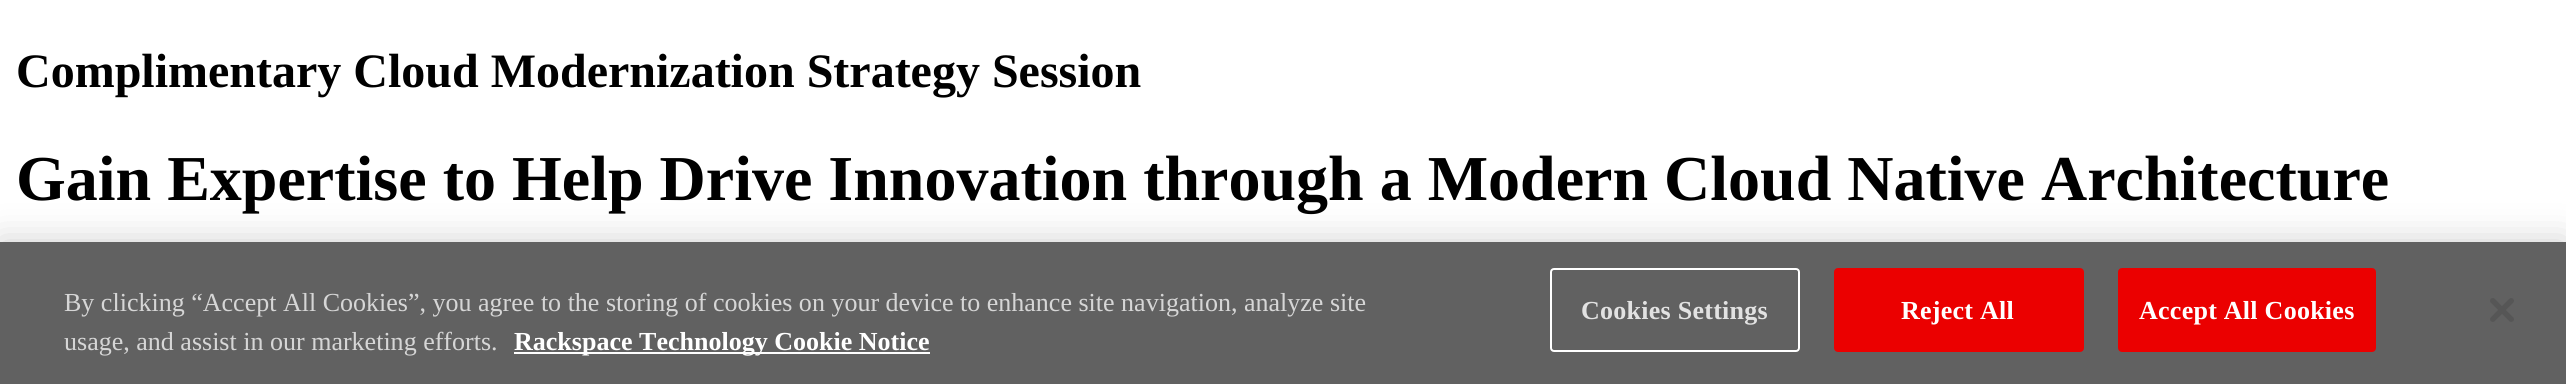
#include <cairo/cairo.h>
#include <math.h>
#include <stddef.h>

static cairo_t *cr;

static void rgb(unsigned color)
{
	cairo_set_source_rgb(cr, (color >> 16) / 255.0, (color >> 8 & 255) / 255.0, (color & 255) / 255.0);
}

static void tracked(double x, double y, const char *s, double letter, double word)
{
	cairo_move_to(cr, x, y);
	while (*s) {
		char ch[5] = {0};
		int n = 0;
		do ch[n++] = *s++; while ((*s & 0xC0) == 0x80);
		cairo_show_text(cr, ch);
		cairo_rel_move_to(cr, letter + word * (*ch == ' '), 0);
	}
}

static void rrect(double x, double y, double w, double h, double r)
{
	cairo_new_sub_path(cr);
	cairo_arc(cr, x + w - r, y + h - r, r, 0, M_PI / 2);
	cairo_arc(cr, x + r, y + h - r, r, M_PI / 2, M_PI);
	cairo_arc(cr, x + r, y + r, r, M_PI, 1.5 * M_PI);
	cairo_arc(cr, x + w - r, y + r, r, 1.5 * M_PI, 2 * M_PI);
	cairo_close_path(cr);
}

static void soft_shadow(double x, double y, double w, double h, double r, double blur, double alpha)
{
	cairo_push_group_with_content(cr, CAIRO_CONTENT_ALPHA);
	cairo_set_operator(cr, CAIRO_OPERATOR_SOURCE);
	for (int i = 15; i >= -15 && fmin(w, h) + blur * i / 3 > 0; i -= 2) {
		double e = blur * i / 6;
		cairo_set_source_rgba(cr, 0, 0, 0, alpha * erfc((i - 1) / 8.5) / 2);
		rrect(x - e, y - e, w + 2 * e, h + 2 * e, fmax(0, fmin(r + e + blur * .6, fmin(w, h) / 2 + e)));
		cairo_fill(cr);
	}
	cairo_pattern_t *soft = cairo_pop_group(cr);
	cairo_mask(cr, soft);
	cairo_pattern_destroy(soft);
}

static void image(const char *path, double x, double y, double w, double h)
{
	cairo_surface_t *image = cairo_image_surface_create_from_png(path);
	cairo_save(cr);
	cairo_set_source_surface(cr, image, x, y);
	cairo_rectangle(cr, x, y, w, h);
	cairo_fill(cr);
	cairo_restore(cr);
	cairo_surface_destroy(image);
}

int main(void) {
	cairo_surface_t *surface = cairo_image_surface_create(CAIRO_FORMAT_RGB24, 2566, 384);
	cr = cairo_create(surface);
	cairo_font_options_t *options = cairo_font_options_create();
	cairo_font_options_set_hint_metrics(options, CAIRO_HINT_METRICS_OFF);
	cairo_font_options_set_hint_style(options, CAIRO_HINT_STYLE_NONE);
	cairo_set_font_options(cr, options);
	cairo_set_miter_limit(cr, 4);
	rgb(0xffffff);
	cairo_paint(cr);
	rgb(0x000000);
	soft_shadow(0, 242, 2566, 142, 0, 18, 0.2);
	rgb(0x616161);
	cairo_rectangle(cr, 0, 242, 2566, 142);
	cairo_fill(cr);
	rgb(0xffffff);
	cairo_rectangle(cr, 514, 352, 416, 2);
	cairo_fill(cr);
	rrect(1551, 269, 248, 82, 3);
	cairo_stroke(cr);
	rgb(0xeb0000);
	rrect(1835, 269, 248, 82, 3);
	cairo_fill_preserve(cr);
	cairo_stroke(cr);
	rrect(2119, 269, 256, 82, 3);
	cairo_fill_preserve(cr);
	cairo_stroke(cr);
	image("img/1.png", 2490, 298, 24, 24);
	cairo_select_font_face(cr, "Liberation Serif", CAIRO_FONT_SLANT_NORMAL, CAIRO_FONT_WEIGHT_BOLD);
	cairo_set_font_size(cr, 48);
	rgb(0x000000);
	cairo_move_to(cr, 16, 87);
	cairo_show_text(cr, "Complimentary Cloud Modernization Strategy Session");
	cairo_set_font_size(cr, 64);
	cairo_move_to(cr, 16, 200);
	cairo_show_text(cr, "Gain Expertise to Help Drive Innovation through a Modern Cloud Native Architecture");
	cairo_select_font_face(cr, "Liberation Serif", CAIRO_FONT_SLANT_NORMAL, CAIRO_FONT_WEIGHT_NORMAL);
	cairo_set_font_size(cr, 26.02);
	rgb(0xd6d6d6);
	cairo_move_to(cr, 64, 311);
	cairo_show_text(cr, "By clicking “Accept All Cookies”, you agree to the storing of cookies on your device to enhance site navigation, analyze site");
	cairo_move_to(cr, 64, 350);
	cairo_show_text(cr, "usage, and assist in our marketing efforts.");
	cairo_select_font_face(cr, "Liberation Serif", CAIRO_FONT_SLANT_NORMAL, CAIRO_FONT_WEIGHT_BOLD);
	rgb(0xffffff);
	cairo_move_to(cr, 514, 350);
	cairo_show_text(cr, "Rackspace Technology Cookie Notice");
	rgb(0xe2e2e2);
	tracked(1581, 319, "Cookies Settings", 0.25, 0);
	rgb(0xffffff);
	tracked(1901, 319, "Reject All", 0.25, 0);
	tracked(2139, 319, "Accept All Cookies", 0.25, 0);
	cairo_surface_write_to_png(surface, "page.png");
	cairo_font_options_destroy(options);
	cairo_destroy(cr);
	cairo_surface_destroy(surface);
	return 0;
}
